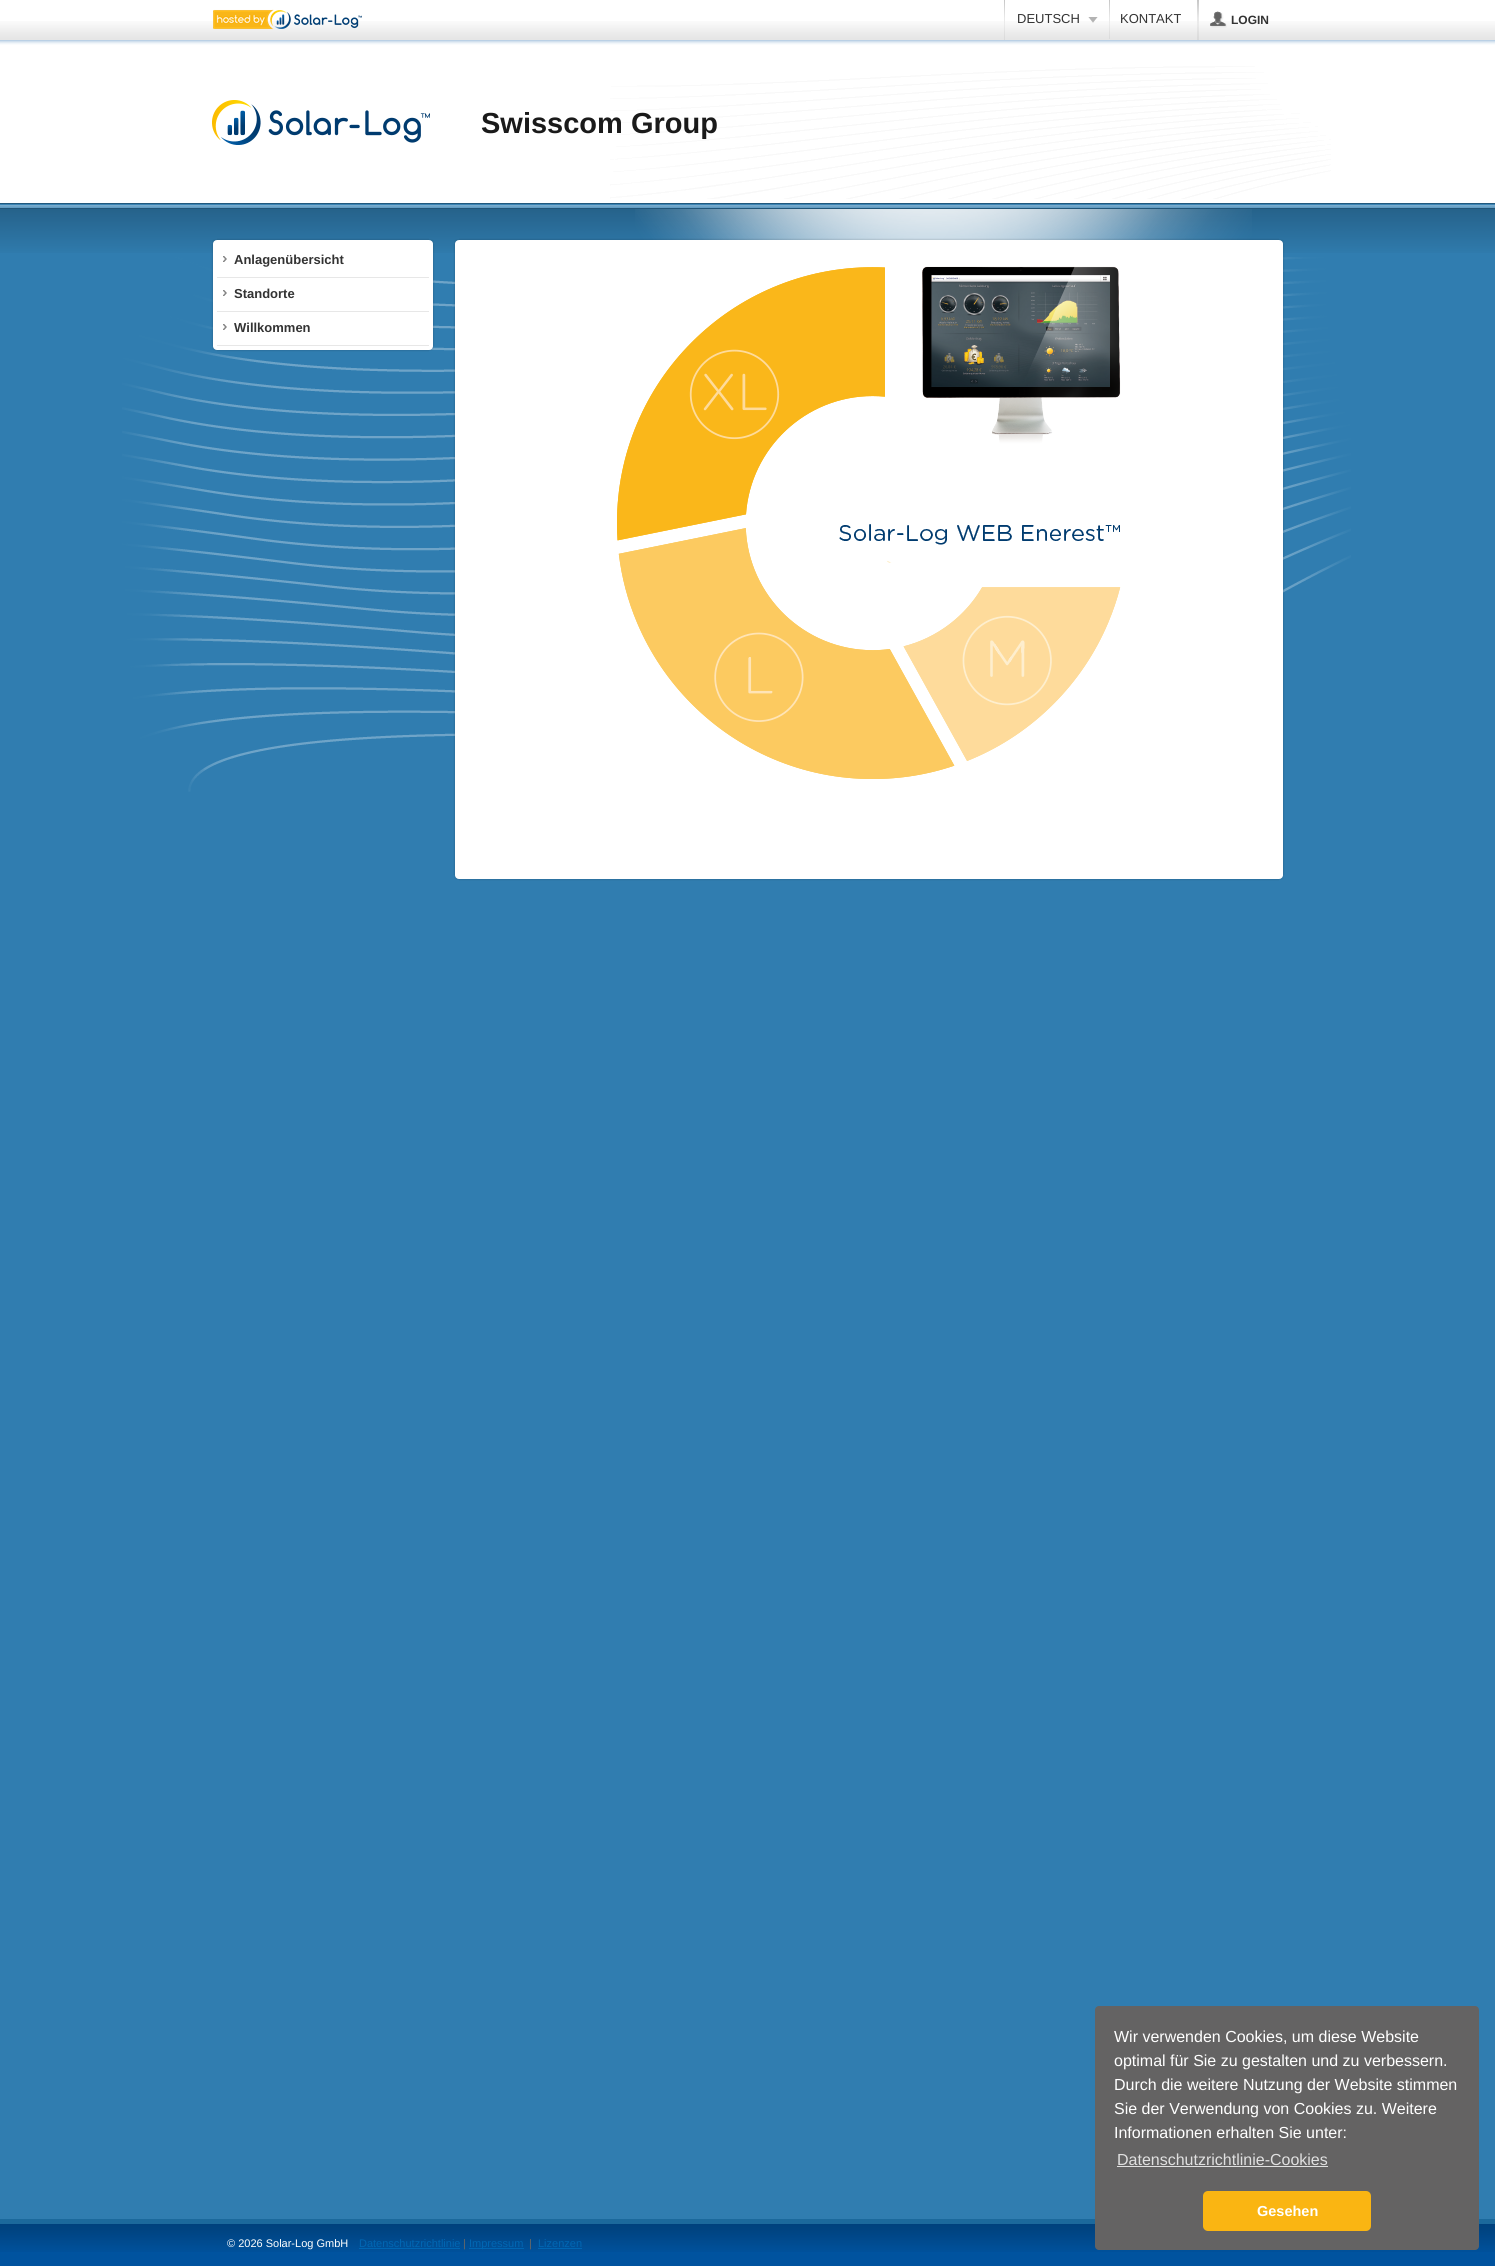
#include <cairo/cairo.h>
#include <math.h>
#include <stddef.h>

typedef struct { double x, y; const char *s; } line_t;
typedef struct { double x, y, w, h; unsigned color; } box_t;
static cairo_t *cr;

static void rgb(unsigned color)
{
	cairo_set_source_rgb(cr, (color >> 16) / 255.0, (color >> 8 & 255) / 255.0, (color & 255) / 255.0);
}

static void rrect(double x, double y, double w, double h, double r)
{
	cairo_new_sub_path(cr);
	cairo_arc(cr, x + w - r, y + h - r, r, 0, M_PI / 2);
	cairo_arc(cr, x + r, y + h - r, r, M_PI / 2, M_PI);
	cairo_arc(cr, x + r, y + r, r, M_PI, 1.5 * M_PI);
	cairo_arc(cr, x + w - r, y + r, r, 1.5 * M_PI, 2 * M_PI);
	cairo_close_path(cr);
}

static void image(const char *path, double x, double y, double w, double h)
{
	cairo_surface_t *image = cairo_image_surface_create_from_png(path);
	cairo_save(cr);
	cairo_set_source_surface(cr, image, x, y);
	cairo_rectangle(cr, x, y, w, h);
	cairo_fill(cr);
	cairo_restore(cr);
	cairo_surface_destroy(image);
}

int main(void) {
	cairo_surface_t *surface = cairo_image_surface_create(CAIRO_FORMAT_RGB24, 1495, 2266);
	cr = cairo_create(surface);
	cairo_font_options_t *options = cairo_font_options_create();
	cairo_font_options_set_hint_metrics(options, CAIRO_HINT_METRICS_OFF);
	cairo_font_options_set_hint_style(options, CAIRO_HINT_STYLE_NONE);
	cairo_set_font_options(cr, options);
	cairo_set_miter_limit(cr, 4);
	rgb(0x307db0);
	cairo_paint(cr);
	rgb(0xffffff);
	cairo_rectangle(cr, 0, 0, 1495, 203);
	cairo_fill(cr);
	image("img/1.png", 0, 21, 1495, 24);
	image("img/2.png", 610, 66, 721, 133);
	image("img/3.png", 213, 9, 149, 21);
	image("img/4.png", 1004, 0, 1, 40);
	image("img/5.png", 1088, 17, 10, 6);
	image("img/6.png", 1109, 0, 1, 39);
	image("img/7.png", 1197, 0, 2, 40);
	image("img/8.png", 1210, 11, 17, 17);
	image("img/9.png", 212, 100, 218, 45);
	image("img/10.png", 0, 203, 1495, 50);
	image("img/11.png", 635, 209, 617, 31);
	image("img/12.png", 122, 257, 1229, 535);
	cairo_rectangle(cr, 217, 244, 212, 101);
	cairo_fill(cr);
	image("img/13.png", 212, 239, 5, 5);
	image("img/14.png", 211, 244, 6, 102);
	image("img/15.png", 217, 238, 212, 6);
	image("img/16.png", 429, 239, 5, 5);
	image("img/17.png", 429, 244, 6, 102);
	image("img/18.png", 212, 346, 5, 5);
	image("img/19.png", 217, 346, 212, 6);
	image("img/20.png", 429, 346, 5, 5);
	image("img/21.png", 223, 256, 4, 6);
	rgb(0xe7e7e7);
	cairo_rectangle(cr, 217, 277, 212, 1);
	cairo_fill(cr);
	image("img/21.png", 223, 290, 4, 6);
	cairo_rectangle(cr, 217, 311, 212, 1);
	cairo_fill(cr);
	image("img/21.png", 223, 324, 4, 6);
	cairo_rectangle(cr, 217, 345, 212, 1);
	cairo_fill(cr);
	rgb(0xffffff);
	cairo_rectangle(cr, 459, 244, 820, 631);
	cairo_fill(cr);
	image("img/13.png", 454, 239, 5, 5);
	image("img/22.png", 453, 244, 6, 631);
	image("img/23.png", 459, 238, 820, 6);
	image("img/16.png", 1279, 239, 5, 5);
	image("img/24.png", 1279, 244, 6, 631);
	image("img/18.png", 454, 875, 5, 5);
	image("img/25.png", 459, 875, 820, 6);
	image("img/26.png", 1279, 875, 5, 5);
	image("img/27.png", 617, 266, 504, 513);
	rgb(0x00539f);
	cairo_rectangle(cr, 0, 2252, 1495, 14);
	cairo_fill(cr);
	image("img/28.png", 0, 2224, 1495, 28);
	{
		static const box_t items[] = {
			{0, 2219, 1495, 5, 0x1c699c},
			{359, 2248, 101, 1, 0x0066b3},
			{469, 2248, 55, 1, 0x0066b3},
			{538, 2248, 44, 1, 0x0066b3},
		};
		for (size_t i = 0; i < sizeof items / sizeof *items; i++) {
			rgb(items[i].color);
			cairo_rectangle(cr, items[i].x, items[i].y, items[i].w, items[i].h);
			cairo_fill(cr);
		}
	}
	rgb(0x646363);
	rrect(1095, 2006, 384, 244, 4);
	cairo_fill(cr);
	rgb(0xe0e0e0);
	cairo_rectangle(cr, 1117, 2166, 211, 1);
	cairo_fill(cr);
	rgb(0xfab512);
	rrect(1203, 2191, 168, 40, 5);
	cairo_fill(cr);
	cairo_select_font_face(cr, "Liberation Sans", CAIRO_FONT_SLANT_NORMAL, CAIRO_FONT_WEIGHT_NORMAL);
	cairo_set_font_size(cr, 13);
	rgb(0x333333);
	cairo_move_to(cr, 1017, 23);
	cairo_show_text(cr, "DEUTSCH");
	cairo_move_to(cr, 1120, 23);
	cairo_show_text(cr, "KONTAKT");
	cairo_select_font_face(cr, "Liberation Sans", CAIRO_FONT_SLANT_NORMAL, CAIRO_FONT_WEIGHT_BOLD);
	cairo_set_font_size(cr, 12);
	cairo_move_to(cr, 1231, 24);
	cairo_show_text(cr, "LOGIN");
	cairo_set_font_size(cr, 29);
	rgb(0x1a1a1a);
	cairo_move_to(cr, 481, 133);
	cairo_show_text(cr, "Swisscom Group");
	cairo_set_font_size(cr, 13);
	rgb(0x333333);
	{
		static const line_t items[] = {
			{234, 264, "Anlagenübersicht"},
			{234, 298, "Standorte"},
			{234, 332, "Willkommen"},
		};
		for (size_t i = 0; i < sizeof items / sizeof *items; i++) {
			cairo_move_to(cr, items[i].x, items[i].y);
			cairo_show_text(cr, items[i].s);
		}
	}
	cairo_select_font_face(cr, "Liberation Sans", CAIRO_FONT_SLANT_NORMAL, CAIRO_FONT_WEIGHT_NORMAL);
	cairo_set_font_size(cr, 11);
	rgb(0xffffff);
	cairo_move_to(cr, 227, 2247);
	cairo_show_text(cr, "© 2026 Solar-Log GmbH");
	rgb(0x0066b3);
	cairo_move_to(cr, 359, 2247);
	cairo_show_text(cr, "Datenschutzrichtlinie");
	rgb(0x666666);
	cairo_move_to(cr, 463, 2247);
	cairo_show_text(cr, "|");
	rgb(0x0066b3);
	cairo_move_to(cr, 469, 2247);
	cairo_show_text(cr, "Impressum");
	rgb(0x666666);
	cairo_move_to(cr, 529, 2247);
	cairo_show_text(cr, "|");
	rgb(0x0066b3);
	cairo_move_to(cr, 538, 2247);
	cairo_show_text(cr, "Lizenzen");
	cairo_set_font_size(cr, 16);
	rgb(0xffffff);
	{
		static const line_t items[] = {
			{1114, 2042, "Wir verwenden Cookies, um diese Website"},
			{1114, 2066, "optimal für Sie zu gestalten und zu verbessern."},
			{1114, 2090, "Durch die weitere Nutzung der Website stimmen"},
			{1114, 2114, "Sie der Verwendung von Cookies zu. Weitere"},
			{1114, 2138, "Informationen erhalten Sie unter:"},
		};
		for (size_t i = 0; i < sizeof items / sizeof *items; i++) {
			cairo_move_to(cr, items[i].x, items[i].y);
			cairo_show_text(cr, items[i].s);
		}
	}
	rgb(0xe0e0e0);
	cairo_move_to(cr, 1117, 2165);
	cairo_show_text(cr, "Datenschutzrichtlinie-Cookies");
	cairo_select_font_face(cr, "Liberation Sans", CAIRO_FONT_SLANT_NORMAL, CAIRO_FONT_WEIGHT_BOLD);
	cairo_set_font_size(cr, 14.5);
	rgb(0xffffff);
	cairo_move_to(cr, 1257, 2216);
	cairo_show_text(cr, "Gesehen");
	cairo_surface_write_to_png(surface, "page.png");
	cairo_font_options_destroy(options);
	cairo_destroy(cr);
	cairo_surface_destroy(surface);
	return 0;
}
